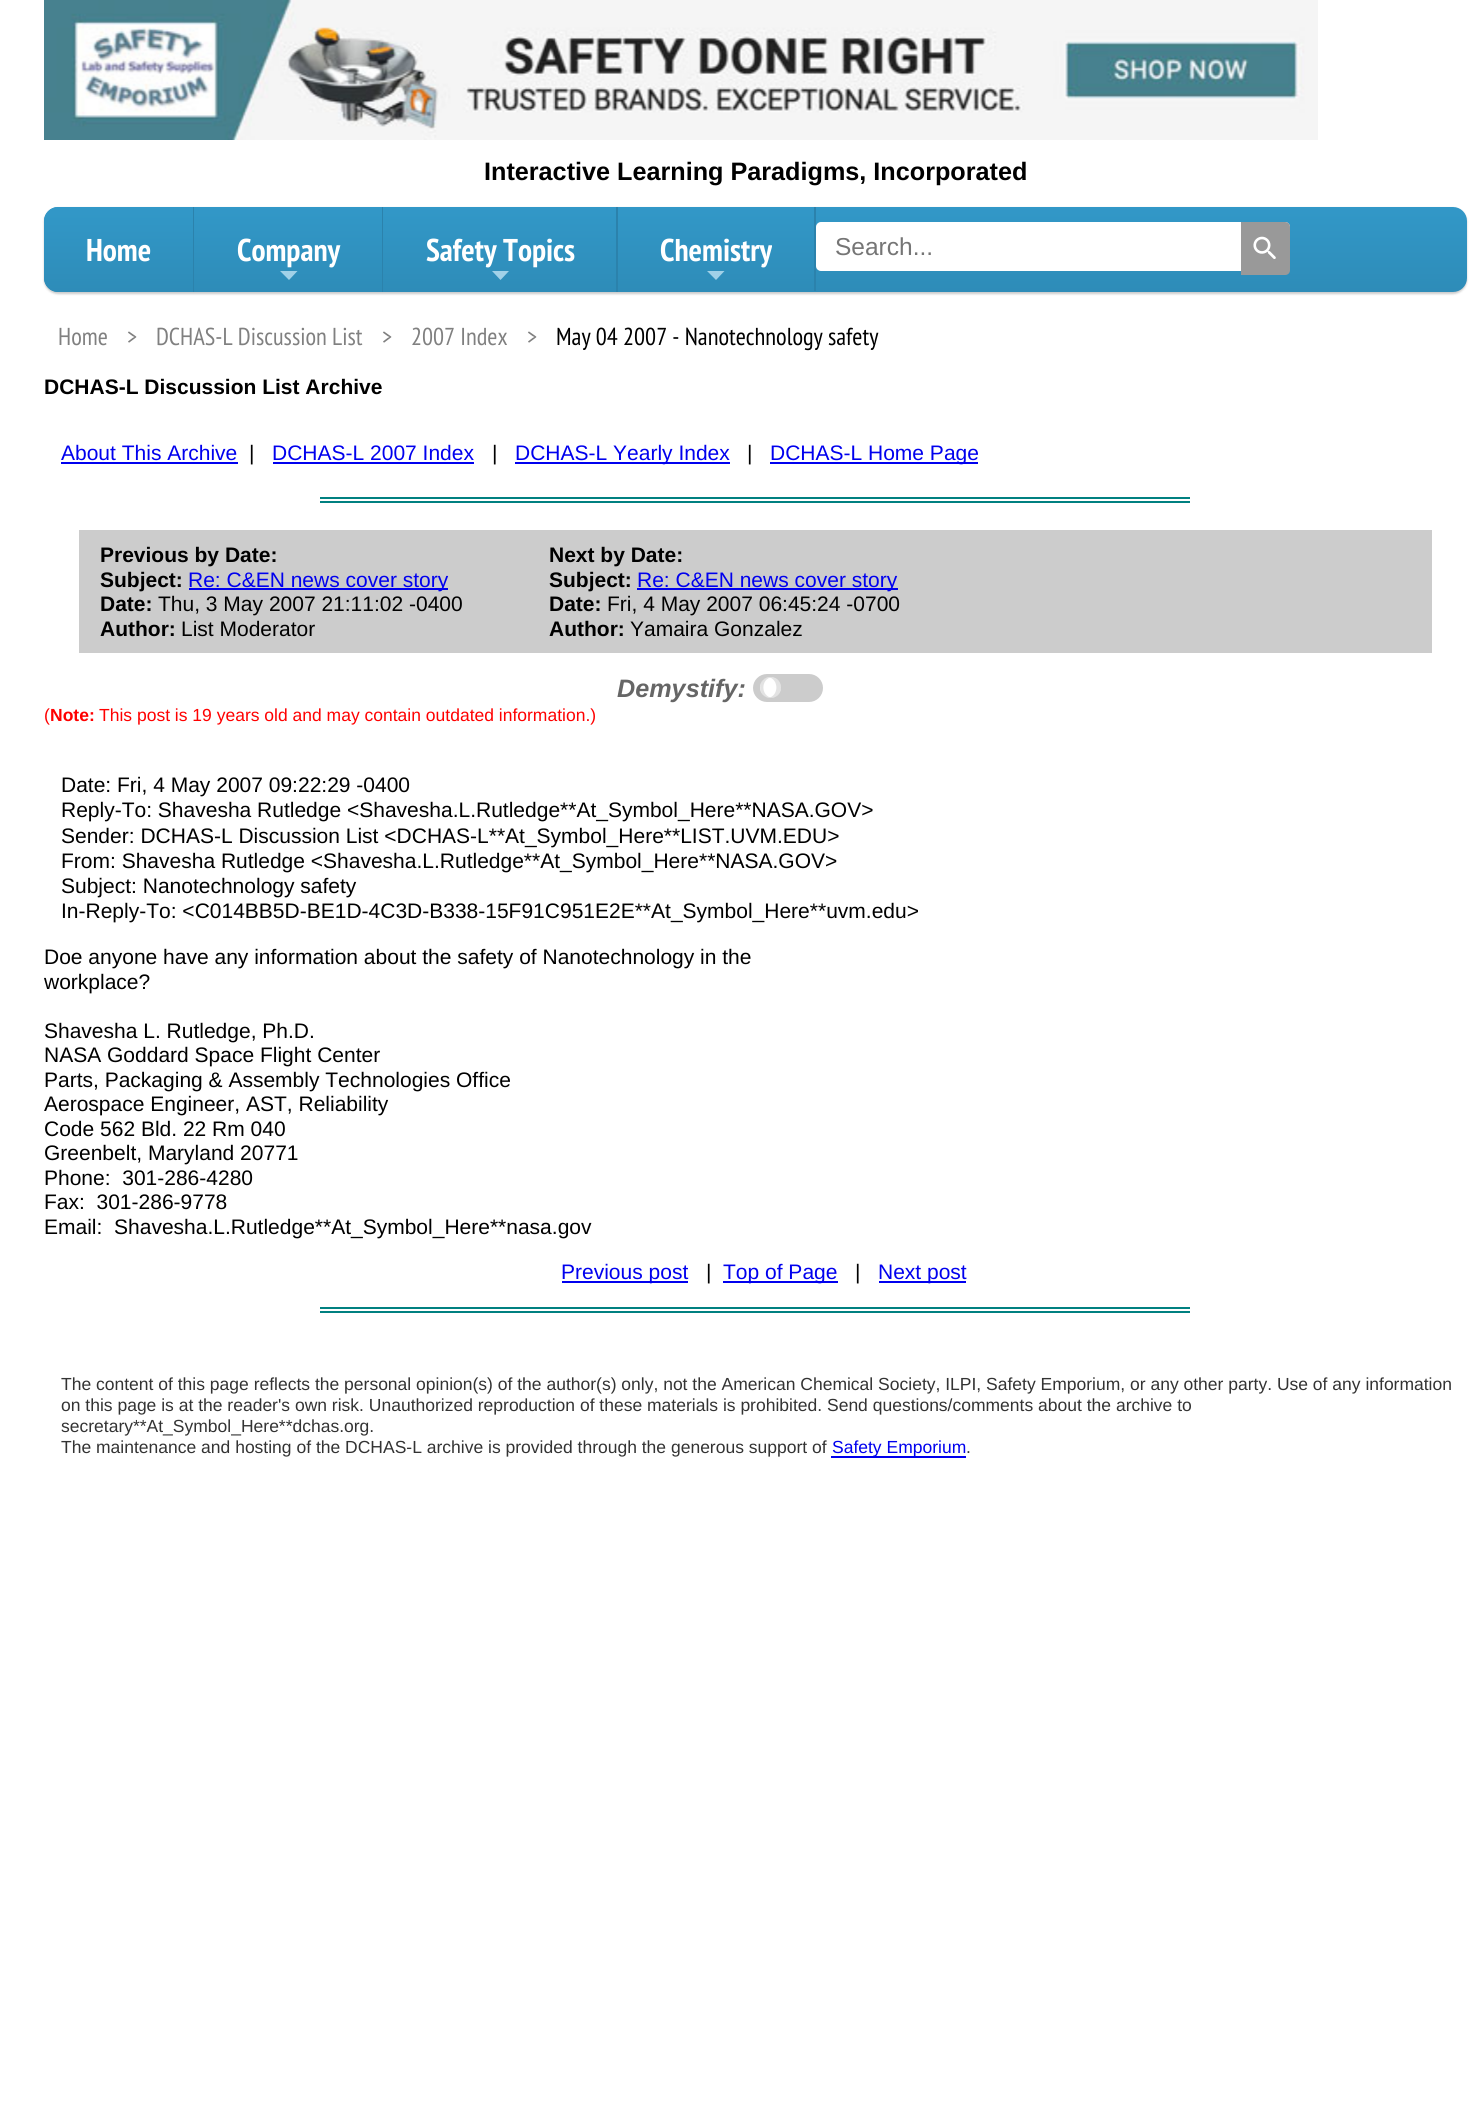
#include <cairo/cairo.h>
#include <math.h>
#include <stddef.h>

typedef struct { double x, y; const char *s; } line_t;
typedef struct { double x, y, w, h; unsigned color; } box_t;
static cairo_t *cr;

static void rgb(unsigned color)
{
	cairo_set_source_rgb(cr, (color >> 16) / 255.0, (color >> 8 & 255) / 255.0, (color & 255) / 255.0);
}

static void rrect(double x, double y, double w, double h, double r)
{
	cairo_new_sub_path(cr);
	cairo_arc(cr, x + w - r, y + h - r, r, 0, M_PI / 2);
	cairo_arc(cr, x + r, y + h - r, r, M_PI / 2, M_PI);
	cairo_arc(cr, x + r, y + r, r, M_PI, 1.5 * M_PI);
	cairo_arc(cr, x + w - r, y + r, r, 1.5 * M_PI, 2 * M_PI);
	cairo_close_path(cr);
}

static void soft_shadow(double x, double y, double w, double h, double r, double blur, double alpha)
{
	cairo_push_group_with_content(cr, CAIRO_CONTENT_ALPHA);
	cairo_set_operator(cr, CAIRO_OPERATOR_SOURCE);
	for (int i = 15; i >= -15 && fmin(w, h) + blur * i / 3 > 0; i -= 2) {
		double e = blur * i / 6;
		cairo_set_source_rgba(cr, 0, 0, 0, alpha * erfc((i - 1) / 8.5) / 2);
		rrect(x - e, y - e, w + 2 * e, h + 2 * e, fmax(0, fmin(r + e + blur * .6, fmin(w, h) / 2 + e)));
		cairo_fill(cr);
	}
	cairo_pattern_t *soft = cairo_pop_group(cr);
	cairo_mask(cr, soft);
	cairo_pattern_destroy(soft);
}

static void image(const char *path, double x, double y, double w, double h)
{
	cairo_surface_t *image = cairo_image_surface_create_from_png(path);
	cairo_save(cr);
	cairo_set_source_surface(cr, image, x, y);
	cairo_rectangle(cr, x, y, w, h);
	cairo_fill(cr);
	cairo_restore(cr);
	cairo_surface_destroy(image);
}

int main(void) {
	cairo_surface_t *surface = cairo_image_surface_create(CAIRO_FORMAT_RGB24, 1479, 2110);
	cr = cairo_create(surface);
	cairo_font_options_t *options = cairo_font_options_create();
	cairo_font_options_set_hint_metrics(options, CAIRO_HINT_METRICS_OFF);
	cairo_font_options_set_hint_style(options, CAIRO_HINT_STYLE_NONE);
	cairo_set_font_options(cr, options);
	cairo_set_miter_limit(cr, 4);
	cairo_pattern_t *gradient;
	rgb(0xffffff);
	cairo_paint(cr);
	image("img/1.png", 44, 0, 1274, 140);
	rgb(0x000000);
	soft_shadow(44, 208, 1423, 86, 14, 1, 0.2);
	gradient = cairo_pattern_create_linear(755, 206, 755, 292);
	cairo_pattern_add_color_stop_rgba(gradient, 0, 0.196, 0.596, 0.784, 1);
	cairo_pattern_add_color_stop_rgba(gradient, 1, 0.18, 0.549, 0.722, 1);
	cairo_set_source(cr, gradient);
	cairo_pattern_destroy(gradient);
	rrect(44, 207, 1423, 85, 14);
	cairo_fill(cr);
	gradient = cairo_pattern_create_linear(118, 207, 118, 292);
	cairo_pattern_add_color_stop_rgba(gradient, 0, 0.196, 0.596, 0.784, 1);
	cairo_pattern_add_color_stop_rgba(gradient, 1, 0.18, 0.549, 0.722, 1);
	cairo_set_source(cr, gradient);
	cairo_pattern_destroy(gradient);
	cairo_new_path(cr);
	cairo_move_to(cr, 58, 207);
	cairo_line_to(cr, 193, 207);
	cairo_line_to(cr, 193, 292);
	cairo_line_to(cr, 58, 292);
	cairo_curve_to(cr, 50.5, 292, 44, 285.5, 44, 278);
	cairo_line_to(cr, 44, 221);
	cairo_curve_to(cr, 44, 213.5, 50.5, 207, 58, 207);
	cairo_close_path(cr);
	cairo_fill(cr);
	rgb(0x2b82ac);
	cairo_rectangle(cr, 193, 207, 1, 85);
	cairo_fill(cr);
	rgb(0xa1d1e8);
	cairo_new_path(cr);
	cairo_move_to(cr, 280, 271);
	cairo_line_to(cr, 297.5, 271);
	cairo_line_to(cr, 289, 280);
	cairo_close_path(cr);
	cairo_fill(cr);
	rgb(0x2b82ac);
	cairo_rectangle(cr, 382, 207, 1, 85);
	cairo_fill(cr);
	rgb(0xa1d1e8);
	cairo_new_path(cr);
	cairo_move_to(cr, 492, 271);
	cairo_line_to(cr, 509, 271);
	cairo_line_to(cr, 500.5, 280);
	cairo_close_path(cr);
	cairo_fill(cr);
	rgb(0x2b82ac);
	cairo_rectangle(cr, 616, 207, 2, 85);
	cairo_fill(cr);
	rgb(0xa1d1e8);
	cairo_new_path(cr);
	cairo_move_to(cr, 707, 271);
	cairo_line_to(cr, 724.5, 271);
	cairo_line_to(cr, 716, 280);
	cairo_close_path(cr);
	cairo_fill(cr);
	rgb(0x2b82ac);
	cairo_rectangle(cr, 814, 207, 2, 84);
	cairo_fill(cr);
	rgb(0xffffff);
	rrect(817, 223, 472, 47, 4);
	cairo_fill_preserve(cr);
	cairo_stroke(cr);
	rgb(0x999999);
	cairo_new_path(cr);
	cairo_move_to(cr, 1241, 222);
	cairo_line_to(cr, 1285, 222);
	cairo_curve_to(cr, 1288, 222, 1290, 224, 1290, 227);
	cairo_line_to(cr, 1290, 270);
	cairo_curve_to(cr, 1290, 273, 1288, 275, 1285, 275);
	cairo_line_to(cr, 1241, 275);
	cairo_close_path(cr);
	cairo_fill(cr);
	image("img/2.png", 1253, 236, 23, 23);
	{
		static const box_t items[] = {
			{61, 462, 177, 2, 0x0000ee},
			{273, 462, 201, 2, 0x0000ee},
			{515, 462, 215, 2, 0x0000ee},
			{770, 462, 208, 2, 0x0000ee},
			{320, 497, 870, 2, 0x008080},
			{320, 501, 870, 2, 0x008080},
			{79, 530, 1353, 123, 0xcccccc},
			{189, 588, 259, 2, 0x0000ee},
			{637, 588, 261, 2, 0x0000ee},
		};
		for (size_t i = 0; i < sizeof items / sizeof *items; i++) {
			rgb(items[i].color);
			cairo_rectangle(cr, items[i].x, items[i].y, items[i].w, items[i].h);
			cairo_fill(cr);
		}
	}
	rgb(0xcccccc);
	rrect(753, 674, 70, 28, 14);
	cairo_fill(cr);
	rgb(0xffffff);
	cairo_arc(cr, 770.5, 687.5, 10.5, 0, 2 * M_PI);
	cairo_fill(cr);
	cairo_set_source_rgba(cr, 0.784, 0.784, 0.784, 0.5);
	cairo_new_path(cr);
	cairo_move_to(cr, 770.5, 677);
	cairo_curve_to(cr, 755.5, 677, 757.5, 700, 772, 698);
	cairo_curve_to(cr, 760.5, 696, 760.5, 679, 772, 677);
	cairo_close_path(cr);
	cairo_fill(cr);
	cairo_new_path(cr);
	cairo_move_to(cr, 770.5, 677);
	cairo_line_to(cr, 768.5, 677);
	cairo_curve_to(cr, 779, 679.5, 779, 695.5, 768.5, 698);
	cairo_curve_to(cr, 779.5, 700, 786, 685, 776.5, 679);
	cairo_curve_to(cr, 774.5, 677.5, 772.5, 677, 770.5, 677);
	cairo_close_path(cr);
	cairo_fill(cr);
	{
		static const box_t items[] = {
			{562, 1281, 126, 2, 0x0000ee},
			{723, 1281, 115, 2, 0x0000ee},
			{879, 1281, 87, 2, 0x0000ee},
			{320, 1307, 870, 2, 0x008080},
			{320, 1311, 870, 2, 0x008080},
			{831, 1456, 135, 2, 0x0000ee},
		};
		for (size_t i = 0; i < sizeof items / sizeof *items; i++) {
			rgb(items[i].color);
			cairo_rectangle(cr, items[i].x, items[i].y, items[i].w, items[i].h);
			cairo_fill(cr);
		}
	}
	cairo_select_font_face(cr, "Liberation Sans", CAIRO_FONT_SLANT_NORMAL, CAIRO_FONT_WEIGHT_BOLD);
	cairo_set_font_size(cr, 25.2);
	rgb(0x000000);
	cairo_move_to(cr, 484, 180);
	cairo_show_text(cr, "Interactive Learning Paradigms, Incorporated");
	cairo_select_font_face(cr, "PT Sans Narrow", CAIRO_FONT_SLANT_NORMAL, CAIRO_FONT_WEIGHT_BOLD);
	cairo_set_font_size(cr, 31.5);
	rgb(0xffffff);
	{
		static const line_t items[] = {
			{86, 261, "Home"},
			{237, 261, "Company"},
			{426, 261, "Safety Topics"},
			{660, 261, "Chemistry"},
		};
		for (size_t i = 0; i < sizeof items / sizeof *items; i++) {
			cairo_move_to(cr, items[i].x, items[i].y);
			cairo_show_text(cr, items[i].s);
		}
	}
	cairo_select_font_face(cr, "Liberation Sans", CAIRO_FONT_SLANT_NORMAL, CAIRO_FONT_WEIGHT_NORMAL);
	cairo_set_font_size(cr, 24.5);
	rgb(0x757575);
	cairo_move_to(cr, 835, 255);
	cairo_show_text(cr, "Search...");
	cairo_select_font_face(cr, "PT Sans Narrow", CAIRO_FONT_SLANT_NORMAL, CAIRO_FONT_WEIGHT_NORMAL);
	rgb(0x808080);
	{
		static const line_t items[] = {
			{58, 345, "Home"},
			{127, 345, ">"},
			{156, 345, "DCHAS-L Discussion List"},
			{382, 345, ">"},
			{411, 345, "2007 Index"},
			{527, 345, ">"},
		};
		for (size_t i = 0; i < sizeof items / sizeof *items; i++) {
			cairo_move_to(cr, items[i].x, items[i].y);
			cairo_show_text(cr, items[i].s);
		}
	}
	rgb(0x000000);
	cairo_move_to(cr, 556, 345);
	cairo_show_text(cr, "May 04 2007 - Nanotechnology safety");
	cairo_select_font_face(cr, "Liberation Sans", CAIRO_FONT_SLANT_NORMAL, CAIRO_FONT_WEIGHT_BOLD);
	cairo_set_font_size(cr, 21);
	cairo_move_to(cr, 44, 394);
	cairo_show_text(cr, "DCHAS-L Discussion List Archive");
	cairo_select_font_face(cr, "Liberation Sans", CAIRO_FONT_SLANT_NORMAL, CAIRO_FONT_WEIGHT_NORMAL);
	rgb(0x0000ee);
	cairo_move_to(cr, 61, 460);
	cairo_show_text(cr, "About This Archive");
	rgb(0x000000);
	cairo_move_to(cr, 249, 460);
	cairo_show_text(cr, "|");
	rgb(0x0000ee);
	cairo_move_to(cr, 272, 460);
	cairo_show_text(cr, "DCHAS-L 2007 Index");
	rgb(0x000000);
	cairo_move_to(cr, 492, 460);
	cairo_show_text(cr, "|");
	rgb(0x0000ee);
	cairo_move_to(cr, 515, 460);
	cairo_show_text(cr, "DCHAS-L Yearly Index");
	rgb(0x000000);
	cairo_move_to(cr, 747, 460);
	cairo_show_text(cr, "|");
	rgb(0x0000ee);
	cairo_move_to(cr, 770, 460);
	cairo_show_text(cr, "DCHAS-L Home Page");
	cairo_select_font_face(cr, "Liberation Sans", CAIRO_FONT_SLANT_NORMAL, CAIRO_FONT_WEIGHT_BOLD);
	rgb(0x000000);
	cairo_move_to(cr, 100, 562);
	cairo_show_text(cr, "Previous by Date:");
	cairo_move_to(cr, 100, 587);
	cairo_show_text(cr, "Subject:");
	cairo_select_font_face(cr, "Liberation Sans", CAIRO_FONT_SLANT_NORMAL, CAIRO_FONT_WEIGHT_NORMAL);
	rgb(0x0000ee);
	cairo_move_to(cr, 188, 587);
	cairo_show_text(cr, "Re: C&EN news cover story");
	cairo_select_font_face(cr, "Liberation Sans", CAIRO_FONT_SLANT_NORMAL, CAIRO_FONT_WEIGHT_BOLD);
	rgb(0x000000);
	cairo_move_to(cr, 100, 611);
	cairo_show_text(cr, "Date:");
	cairo_select_font_face(cr, "Liberation Sans", CAIRO_FONT_SLANT_NORMAL, CAIRO_FONT_WEIGHT_NORMAL);
	cairo_move_to(cr, 158, 611);
	cairo_show_text(cr, "Thu, 3 May 2007 21:11:02 -0400");
	cairo_select_font_face(cr, "Liberation Sans", CAIRO_FONT_SLANT_NORMAL, CAIRO_FONT_WEIGHT_BOLD);
	cairo_move_to(cr, 100, 636);
	cairo_show_text(cr, "Author:");
	cairo_select_font_face(cr, "Liberation Sans", CAIRO_FONT_SLANT_NORMAL, CAIRO_FONT_WEIGHT_NORMAL);
	cairo_move_to(cr, 181, 636);
	cairo_show_text(cr, "List Moderator");
	cairo_select_font_face(cr, "Liberation Sans", CAIRO_FONT_SLANT_NORMAL, CAIRO_FONT_WEIGHT_BOLD);
	cairo_move_to(cr, 549, 562);
	cairo_show_text(cr, "Next by Date:");
	cairo_move_to(cr, 549, 587);
	cairo_show_text(cr, "Subject:");
	cairo_select_font_face(cr, "Liberation Sans", CAIRO_FONT_SLANT_NORMAL, CAIRO_FONT_WEIGHT_NORMAL);
	rgb(0x0000ee);
	cairo_move_to(cr, 637, 587);
	cairo_show_text(cr, "Re: C&EN news cover story");
	cairo_select_font_face(cr, "Liberation Sans", CAIRO_FONT_SLANT_NORMAL, CAIRO_FONT_WEIGHT_BOLD);
	rgb(0x000000);
	cairo_move_to(cr, 549, 611);
	cairo_show_text(cr, "Date:");
	cairo_select_font_face(cr, "Liberation Sans", CAIRO_FONT_SLANT_NORMAL, CAIRO_FONT_WEIGHT_NORMAL);
	cairo_move_to(cr, 607, 611);
	cairo_show_text(cr, "Fri, 4 May 2007 06:45:24 -0700");
	cairo_select_font_face(cr, "Liberation Sans", CAIRO_FONT_SLANT_NORMAL, CAIRO_FONT_WEIGHT_BOLD);
	cairo_move_to(cr, 549, 636);
	cairo_show_text(cr, "Author:");
	cairo_select_font_face(cr, "Liberation Sans", CAIRO_FONT_SLANT_NORMAL, CAIRO_FONT_WEIGHT_NORMAL);
	cairo_move_to(cr, 630, 636);
	cairo_show_text(cr, "Yamaira Gonzalez");
	cairo_select_font_face(cr, "Liberation Sans", CAIRO_FONT_SLANT_ITALIC, CAIRO_FONT_WEIGHT_BOLD);
	cairo_set_font_size(cr, 25.2);
	rgb(0x666666);
	cairo_move_to(cr, 617, 697);
	cairo_show_text(cr, "Demystify:");
	cairo_select_font_face(cr, "Liberation Sans", CAIRO_FONT_SLANT_NORMAL, CAIRO_FONT_WEIGHT_NORMAL);
	cairo_set_font_size(cr, 17.5);
	rgb(0xff0000);
	cairo_move_to(cr, 44, 721);
	cairo_show_text(cr, "(");
	cairo_select_font_face(cr, "Liberation Sans", CAIRO_FONT_SLANT_NORMAL, CAIRO_FONT_WEIGHT_BOLD);
	cairo_move_to(cr, 50, 721);
	cairo_show_text(cr, "Note:");
	cairo_select_font_face(cr, "Liberation Sans", CAIRO_FONT_SLANT_NORMAL, CAIRO_FONT_WEIGHT_NORMAL);
	cairo_move_to(cr, 99, 721);
	cairo_show_text(cr, "This post is 19 years old and may contain outdated information.)");
	cairo_set_font_size(cr, 21);
	rgb(0x000000);
	{
		static const line_t items[] = {
			{61, 792, "Date: Fri, 4 May 2007 09:22:29 -0400"},
			{61, 817, "Reply-To: Shavesha Rutledge <Shavesha.L.Rutledge**At_Symbol_Here**NASA.GOV>"},
			{61, 843, "Sender: DCHAS-L Discussion List <DCHAS-L**At_Symbol_Here**LIST.UVM.EDU>"},
			{61, 868, "From: Shavesha Rutledge <Shavesha.L.Rutledge**At_Symbol_Here**NASA.GOV>"},
			{61, 893, "Subject: Nanotechnology safety"},
			{61, 918, "In-Reply-To: <C014BB5D-BE1D-4C3D-B338-15F91C951E2E**At_Symbol_Here**uvm.edu>"},
			{44, 964, "Doe anyone have any information about the safety of Nanotechnology in the"},
			{44, 989, "workplace?"},
			{44, 1038, "Shavesha L. Rutledge, Ph.D."},
			{44, 1062, "NASA Goddard Space Flight Center"},
			{44, 1087, "Parts, Packaging & Assembly Technologies Office"},
			{44, 1111, "Aerospace Engineer, AST, Reliability"},
			{44, 1136, "Code 562 Bld. 22 Rm 040"},
			{44, 1160, "Greenbelt, Maryland 20771"},
			{44, 1185, "Phone:  301-286-4280"},
			{44, 1209, "Fax:  301-286-9778"},
			{44, 1234, "Email:  Shavesha.L.Rutledge**At_Symbol_Here**nasa.gov"},
		};
		for (size_t i = 0; i < sizeof items / sizeof *items; i++) {
			cairo_move_to(cr, items[i].x, items[i].y);
			cairo_show_text(cr, items[i].s);
		}
	}
	rgb(0x0000ee);
	cairo_move_to(cr, 561, 1279);
	cairo_show_text(cr, "Previous post");
	rgb(0x000000);
	cairo_move_to(cr, 706, 1279);
	cairo_show_text(cr, "|");
	rgb(0x0000ee);
	cairo_move_to(cr, 723, 1279);
	cairo_show_text(cr, "Top of Page");
	rgb(0x000000);
	cairo_move_to(cr, 855, 1279);
	cairo_show_text(cr, "|");
	rgb(0x0000ee);
	cairo_move_to(cr, 878, 1279);
	cairo_show_text(cr, "Next post");
	cairo_set_font_size(cr, 17.5);
	rgb(0x333333);
	{
		static const line_t items[] = {
			{61, 1390, "The content of this page reflects the personal opinion(s) of the author(s) only, not the American Chemical Society, ILPI, Safety Emporium, or any other party. Use of any information"},
			{61, 1411, "on this page is at the reader's own risk. Unauthorized reproduction of these materials is prohibited. Send questions/comments about the archive to"},
			{61, 1432, "secretary**At_Symbol_Here**dchas.org."},
			{61, 1453, "The maintenance and hosting of the DCHAS-L archive is provided through the generous support of"},
		};
		for (size_t i = 0; i < sizeof items / sizeof *items; i++) {
			cairo_move_to(cr, items[i].x, items[i].y);
			cairo_show_text(cr, items[i].s);
		}
	}
	rgb(0x0000ee);
	cairo_move_to(cr, 832, 1453);
	cairo_show_text(cr, "Safety Emporium");
	rgb(0x333333);
	cairo_move_to(cr, 966, 1453);
	cairo_show_text(cr, ".");
	cairo_surface_write_to_png(surface, "page.png");
	cairo_font_options_destroy(options);
	cairo_destroy(cr);
	cairo_surface_destroy(surface);
	return 0;
}
